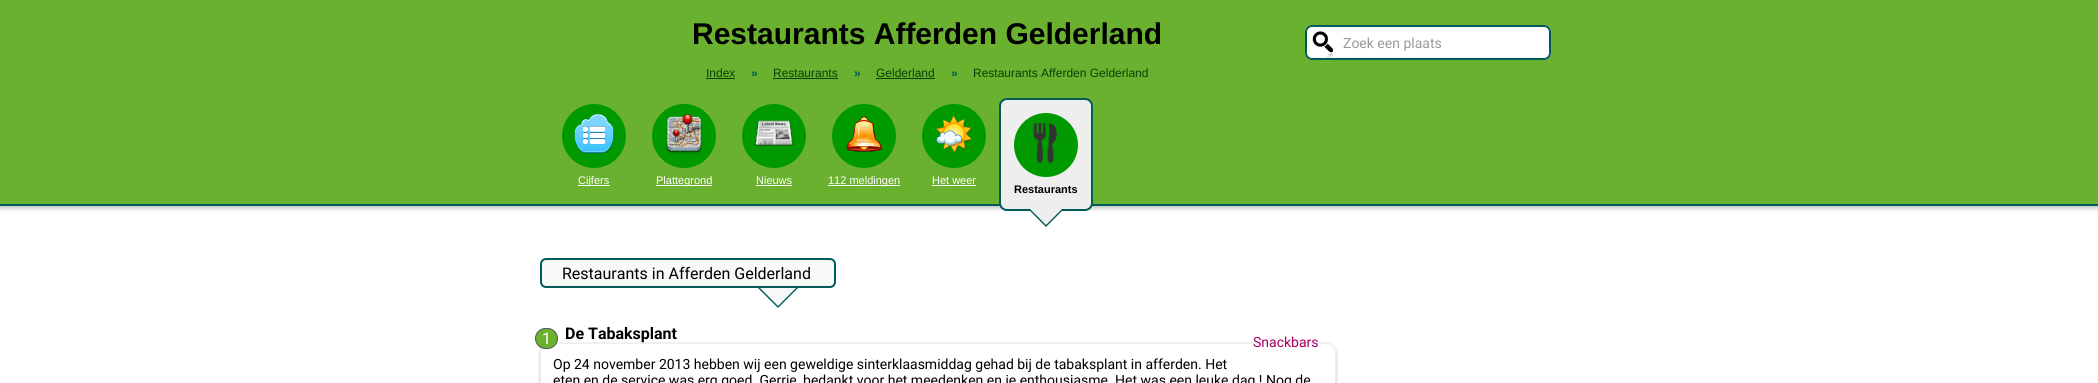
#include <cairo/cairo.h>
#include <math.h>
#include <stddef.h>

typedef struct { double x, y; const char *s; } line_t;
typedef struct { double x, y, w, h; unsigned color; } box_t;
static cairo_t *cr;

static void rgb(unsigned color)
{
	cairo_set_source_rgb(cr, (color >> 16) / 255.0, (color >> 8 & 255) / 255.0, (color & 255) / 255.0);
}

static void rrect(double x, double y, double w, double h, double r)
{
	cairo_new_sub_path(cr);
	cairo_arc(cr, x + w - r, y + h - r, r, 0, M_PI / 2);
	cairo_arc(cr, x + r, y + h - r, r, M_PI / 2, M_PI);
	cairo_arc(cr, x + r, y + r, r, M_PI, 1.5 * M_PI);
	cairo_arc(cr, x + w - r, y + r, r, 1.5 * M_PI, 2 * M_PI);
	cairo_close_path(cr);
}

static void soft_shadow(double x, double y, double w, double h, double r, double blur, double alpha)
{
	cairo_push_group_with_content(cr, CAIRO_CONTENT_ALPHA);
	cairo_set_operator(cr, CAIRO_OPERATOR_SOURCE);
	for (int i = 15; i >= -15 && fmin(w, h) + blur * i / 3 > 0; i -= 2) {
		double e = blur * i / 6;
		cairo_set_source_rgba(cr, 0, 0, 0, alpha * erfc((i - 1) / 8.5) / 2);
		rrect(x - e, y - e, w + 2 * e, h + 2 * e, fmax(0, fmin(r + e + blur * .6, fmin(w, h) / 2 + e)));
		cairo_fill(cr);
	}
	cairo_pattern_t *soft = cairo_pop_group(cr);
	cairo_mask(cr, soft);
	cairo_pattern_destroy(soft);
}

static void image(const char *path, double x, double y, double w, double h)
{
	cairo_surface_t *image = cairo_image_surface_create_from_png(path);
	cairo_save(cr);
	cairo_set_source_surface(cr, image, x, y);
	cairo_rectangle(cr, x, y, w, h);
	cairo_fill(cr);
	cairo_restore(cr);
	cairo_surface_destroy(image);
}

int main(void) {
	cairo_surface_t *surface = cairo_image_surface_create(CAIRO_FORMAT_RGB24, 2098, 383);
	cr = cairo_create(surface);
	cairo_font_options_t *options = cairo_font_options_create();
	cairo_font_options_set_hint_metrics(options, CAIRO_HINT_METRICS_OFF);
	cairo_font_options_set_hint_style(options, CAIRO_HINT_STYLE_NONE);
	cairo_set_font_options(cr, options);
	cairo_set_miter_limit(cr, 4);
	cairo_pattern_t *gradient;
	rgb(0xffffff);
	cairo_paint(cr);
	rgb(0x005b5b);
	cairo_new_path(cr);
	cairo_move_to(cr, 1026, 207);
	cairo_line_to(cr, 1066, 207);
	cairo_line_to(cr, 1046, 227);
	cairo_close_path(cr);
	cairo_fill(cr);
	rgb(0xbbbbbb);
	soft_shadow(0, 2, 2098, 206, 0, 2.5, 1);
	rgb(0x6bb130);
	cairo_rectangle(cr, 0, 0, 2098, 204);
	cairo_fill(cr);
	rgb(0x005b5b);
	cairo_rectangle(cr, 0, 204, 2098, 2);
	cairo_fill(cr);
	rgb(0xffffff);
	rrect(1305, 25, 246, 35, 7);
	cairo_fill(cr);
	image("img/1.png", 1305, 31, 29, 27);
	rrect(1306, 26, 244, 33, 6);
	rgb(0x005b5b);
	cairo_stroke(cr);
	{
		static const box_t items[] = {
			{706, 78, 29, 1, 0x004400},
			{773, 78, 65, 1, 0x004400},
			{876, 78, 59, 1, 0x004400},
		};
		for (size_t i = 0; i < sizeof items / sizeof *items; i++) {
			rgb(items[i].color);
			cairo_rectangle(cr, items[i].x, items[i].y, items[i].w, items[i].h);
			cairo_fill(cr);
		}
	}
	rgb(0x009900);
	cairo_arc(cr, 594, 136, 32, 0, 2 * M_PI);
	cairo_fill(cr);
	image("img/2.png", 574, 114, 40, 40);
	rgb(0xffffff);
	cairo_rectangle(cr, 578, 185, 32, 1);
	cairo_fill(cr);
	rgb(0x009900);
	cairo_arc(cr, 684, 136, 32, 0, 2 * M_PI);
	cairo_fill(cr);
	image("img/3.png", 666, 114, 36, 40);
	rgb(0xffffff);
	cairo_rectangle(cr, 656, 185, 56, 1);
	cairo_fill(cr);
	rgb(0x009900);
	cairo_arc(cr, 774, 136, 32, 0, 2 * M_PI);
	cairo_fill(cr);
	image("img/4.png", 754, 120, 40, 26);
	rgb(0xffffff);
	cairo_rectangle(cr, 756, 185, 36, 1);
	cairo_fill(cr);
	rgb(0x009900);
	cairo_arc(cr, 864, 136, 32, 0, 2 * M_PI);
	cairo_fill(cr);
	image("img/5.png", 846, 116, 36, 36);
	rgb(0xffffff);
	cairo_rectangle(cr, 828, 185, 72, 1);
	cairo_fill(cr);
	rgb(0x009900);
	cairo_arc(cr, 954, 136, 32, 0, 2 * M_PI);
	cairo_fill(cr);
	image("img/6.png", 936, 115, 36, 38);
	rgb(0xffffff);
	cairo_rectangle(cr, 932, 185, 44, 1);
	cairo_fill(cr);
	rgb(0xeeeeee);
	rrect(1000, 99, 92, 111, 7);
	cairo_fill_preserve(cr);
	rgb(0x005b5b);
	cairo_stroke(cr);
	rgb(0x009900);
	cairo_arc(cr, 1046, 145, 32, 0, 2 * M_PI);
	cairo_fill(cr);
	image("img/7.png", 1033, 123, 24, 40);
	rgb(0xeeeeee);
	cairo_new_path(cr);
	cairo_move_to(cr, 1028, 207);
	cairo_line_to(cr, 1064, 207);
	cairo_line_to(cr, 1046, 225);
	cairo_close_path(cr);
	cairo_fill(cr);
	rgb(0xf6f9f6);
	rrect(541, 259, 294, 28, 5);
	cairo_fill_preserve(cr);
	rgb(0x005b5b);
	cairo_stroke(cr);
	cairo_new_path(cr);
	cairo_move_to(cr, 758, 288);
	cairo_line_to(cr, 798, 288);
	cairo_line_to(cr, 778, 308);
	cairo_close_path(cr);
	cairo_fill(cr);
	rgb(0xf6f9f6);
	cairo_new_path(cr);
	cairo_move_to(cr, 760, 288);
	cairo_line_to(cr, 796, 288);
	cairo_line_to(cr, 778, 306);
	cairo_close_path(cr);
	cairo_fill(cr);
	rgb(0xbbbbbb);
	soft_shadow(540, 344, 796, 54, 10, 1.5, 1);
	cairo_save(cr);
	rrect(540, 343, 796, 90, 10);
	cairo_clip(cr);
	gradient = cairo_pattern_create_linear(938, 344, 938, 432);
	cairo_pattern_add_color_stop_rgba(gradient, 0.3, 1, 1, 1, 1);
	cairo_pattern_add_color_stop_rgba(gradient, 1, 0.965, 0.976, 0.965, 1);
	cairo_set_source(cr, gradient);
	cairo_pattern_destroy(gradient);
	cairo_rectangle(cr, 540, 344, 796, 39);
	cairo_fill(cr);
	cairo_restore(cr);
	rrect(540.5, 343.5, 795, 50, 9.5);
	rgb(0xeeeeee);
	cairo_set_line_width(cr, 1);
	cairo_stroke(cr);
	rgb(0x6bb130);
	rrect(535.5, 328.5, 22, 20, 10);
	cairo_fill_preserve(cr);
	rgb(0x555555);
	cairo_stroke(cr);
	cairo_select_font_face(cr, "Liberation Sans", CAIRO_FONT_SLANT_NORMAL, CAIRO_FONT_WEIGHT_BOLD);
	cairo_set_font_size(cr, 30);
	rgb(0x000000);
	cairo_move_to(cr, 692, 44);
	cairo_show_text(cr, "Restaurants Afferden Gelderland");
	cairo_select_font_face(cr, "Roboto", CAIRO_FONT_SLANT_NORMAL, CAIRO_FONT_WEIGHT_NORMAL);
	cairo_set_font_size(cr, 14);
	rgb(0x999999);
	cairo_move_to(cr, 1343, 48);
	cairo_show_text(cr, "Zoek een plaats");
	cairo_select_font_face(cr, "Liberation Sans", CAIRO_FONT_SLANT_NORMAL, CAIRO_FONT_WEIGHT_NORMAL);
	cairo_set_font_size(cr, 12);
	rgb(0x004400);
	cairo_move_to(cr, 706, 77);
	cairo_show_text(cr, "Index");
	cairo_select_font_face(cr, "Liberation Sans", CAIRO_FONT_SLANT_NORMAL, CAIRO_FONT_WEIGHT_BOLD);
	rgb(0x005b5b);
	cairo_move_to(cr, 751, 77);
	cairo_show_text(cr, "»");
	cairo_select_font_face(cr, "Liberation Sans", CAIRO_FONT_SLANT_NORMAL, CAIRO_FONT_WEIGHT_NORMAL);
	rgb(0x004400);
	cairo_move_to(cr, 773, 77);
	cairo_show_text(cr, "Restaurants");
	cairo_select_font_face(cr, "Liberation Sans", CAIRO_FONT_SLANT_NORMAL, CAIRO_FONT_WEIGHT_BOLD);
	rgb(0x005b5b);
	cairo_move_to(cr, 854, 77);
	cairo_show_text(cr, "»");
	cairo_select_font_face(cr, "Liberation Sans", CAIRO_FONT_SLANT_NORMAL, CAIRO_FONT_WEIGHT_NORMAL);
	rgb(0x004400);
	cairo_move_to(cr, 876, 77);
	cairo_show_text(cr, "Gelderland");
	cairo_select_font_face(cr, "Liberation Sans", CAIRO_FONT_SLANT_NORMAL, CAIRO_FONT_WEIGHT_BOLD);
	rgb(0x005b5b);
	cairo_move_to(cr, 951, 77);
	cairo_show_text(cr, "»");
	cairo_select_font_face(cr, "Liberation Sans", CAIRO_FONT_SLANT_NORMAL, CAIRO_FONT_WEIGHT_NORMAL);
	rgb(0x004400);
	cairo_move_to(cr, 973, 77);
	cairo_show_text(cr, "Restaurants Afferden Gelderland");
	cairo_set_font_size(cr, 11);
	rgb(0xffffff);
	{
		static const line_t items[] = {
			{578, 184, "Cijfers"},
			{656, 184, "Plattegrond"},
			{756, 184, "Nieuws"},
			{828, 184, "112 meldingen"},
			{932, 184, "Het weer"},
		};
		for (size_t i = 0; i < sizeof items / sizeof *items; i++) {
			cairo_move_to(cr, items[i].x, items[i].y);
			cairo_show_text(cr, items[i].s);
		}
	}
	cairo_select_font_face(cr, "Liberation Sans", CAIRO_FONT_SLANT_NORMAL, CAIRO_FONT_WEIGHT_BOLD);
	rgb(0x000000);
	cairo_move_to(cr, 1014, 193);
	cairo_show_text(cr, "Restaurants");
	cairo_select_font_face(cr, "Roboto", CAIRO_FONT_SLANT_NORMAL, CAIRO_FONT_WEIGHT_NORMAL);
	cairo_set_font_size(cr, 16);
	cairo_move_to(cr, 562, 279);
	cairo_show_text(cr, "Restaurants in Afferden Gelderland");
	rgb(0xffffff);
	cairo_move_to(cr, 542, 344);
	cairo_show_text(cr, "1");
	cairo_select_font_face(cr, "Roboto", CAIRO_FONT_SLANT_NORMAL, CAIRO_FONT_WEIGHT_BOLD);
	rgb(0x000000);
	cairo_move_to(cr, 565, 339);
	cairo_show_text(cr, "De Tabaksplant");
	cairo_select_font_face(cr, "Roboto", CAIRO_FONT_SLANT_NORMAL, CAIRO_FONT_WEIGHT_NORMAL);
	cairo_set_font_size(cr, 14);
	rgb(0xaa0066);
	cairo_move_to(cr, 1253, 347);
	cairo_show_text(cr, "Snackbars");
	rgb(0x000000);
	cairo_move_to(cr, 553, 369);
	cairo_show_text(cr, "Op 24 november 2013 hebben wij een geweldige sinterklaasmiddag gehad bij de tabaksplant in afferden. Het");
	cairo_move_to(cr, 553, 385);
	cairo_show_text(cr, "eten en de service was erg goed. Gerrie, bedankt voor het meedenken en je enthousiasme. Het was een leuke dag ! Nog de");
	cairo_surface_write_to_png(surface, "page.png");
	cairo_font_options_destroy(options);
	cairo_destroy(cr);
	cairo_surface_destroy(surface);
	return 0;
}
